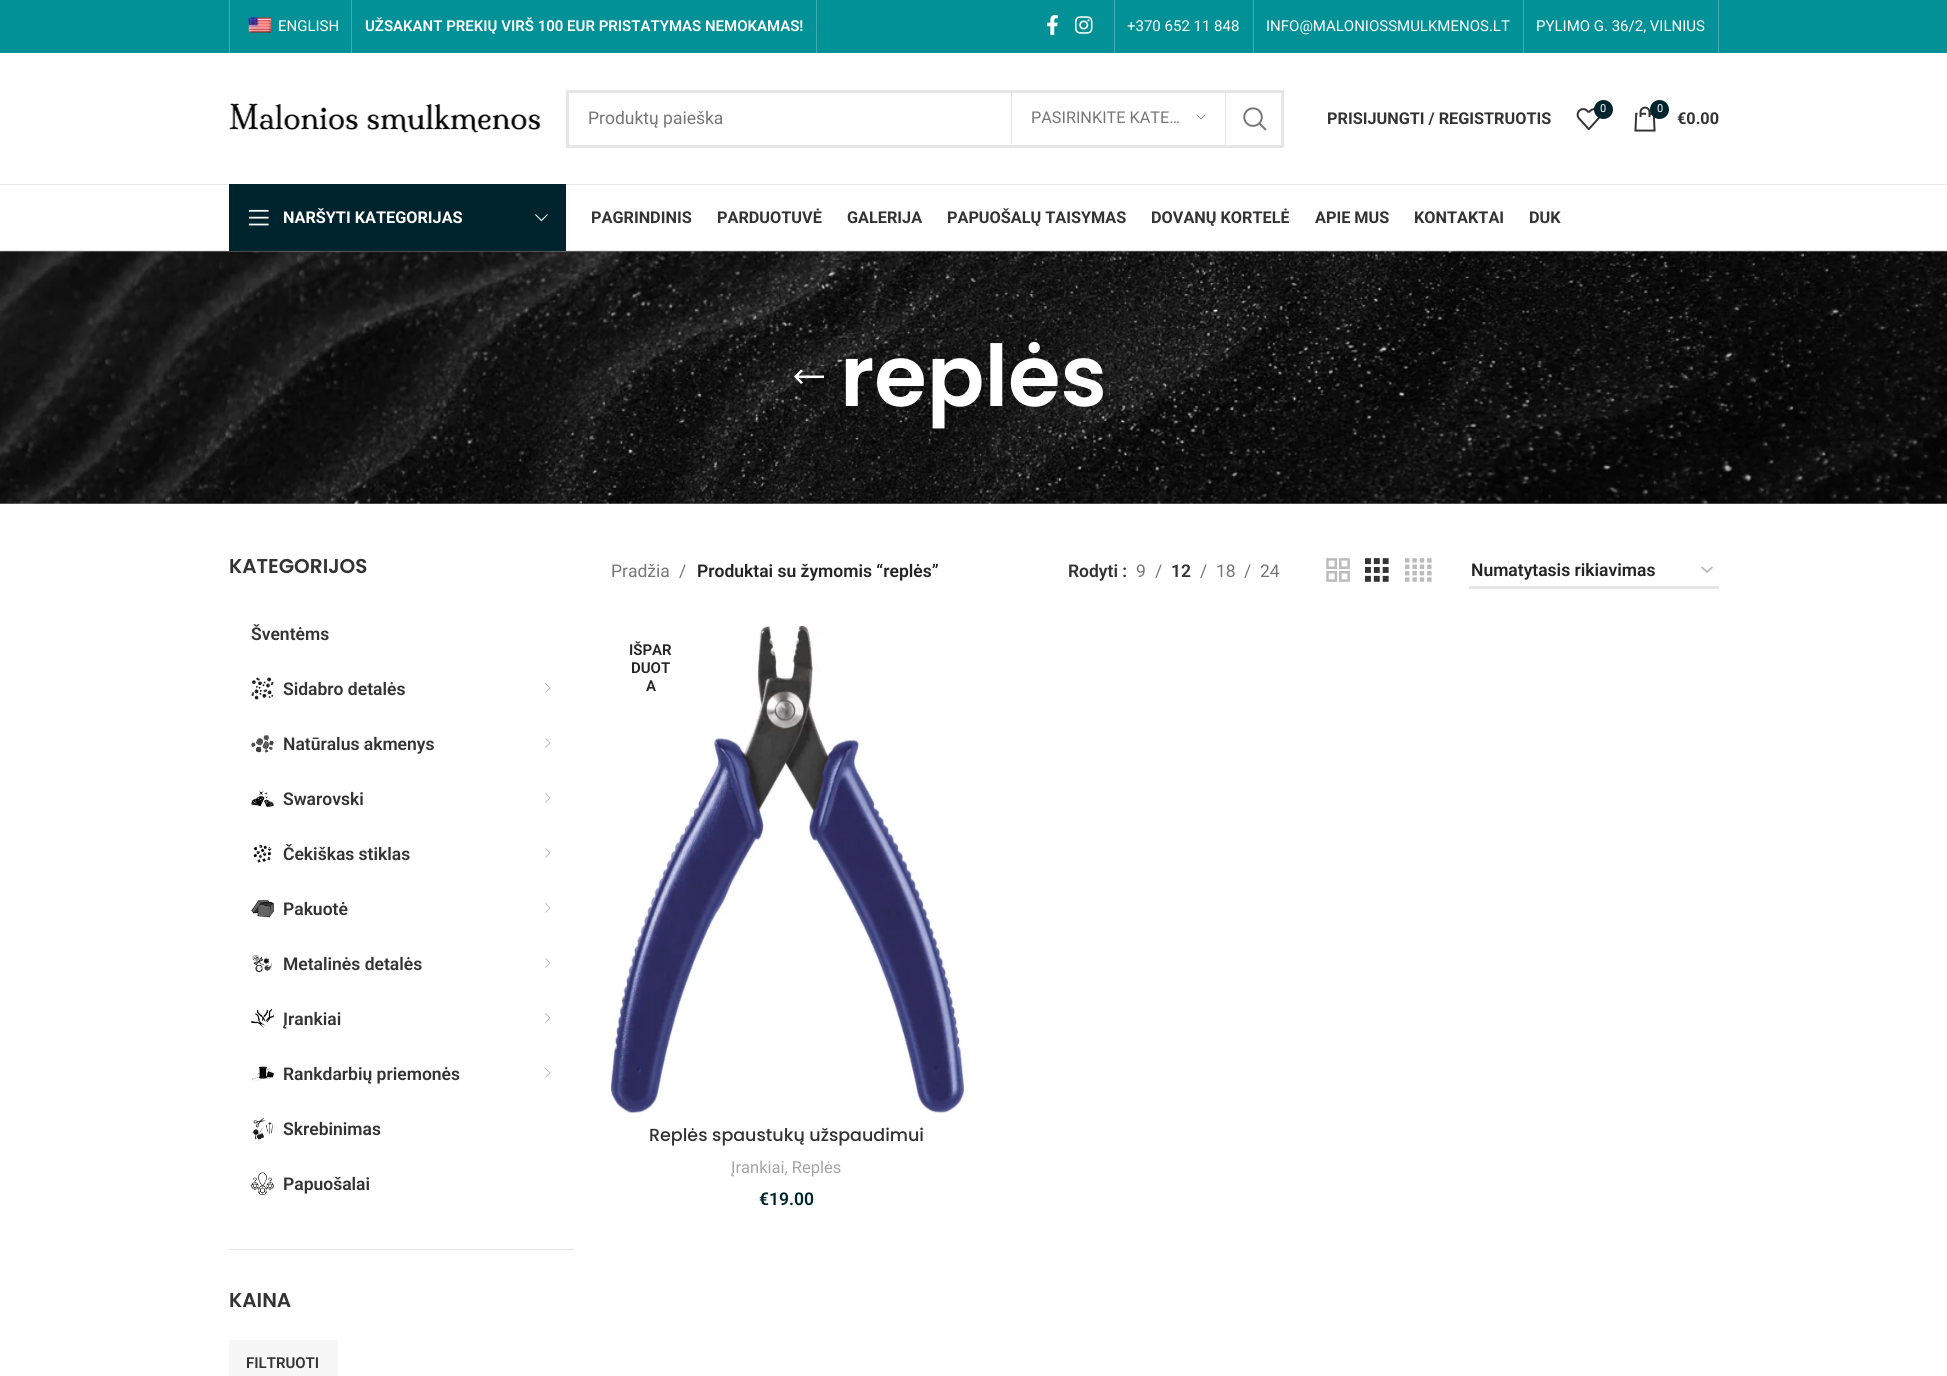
#include <cairo/cairo.h>
#include <math.h>
#include <stddef.h>

typedef struct { double x, y; const char *s; } line_t;
typedef struct { double x, y, w, h; unsigned color; } box_t;
static cairo_t *cr;

static void rgb(unsigned color)
{
	cairo_set_source_rgb(cr, (color >> 16) / 255.0, (color >> 8 & 255) / 255.0, (color & 255) / 255.0);
}

static void image(const char *path, double x, double y, double w, double h)
{
	cairo_surface_t *image = cairo_image_surface_create_from_png(path);
	cairo_save(cr);
	cairo_set_source_surface(cr, image, x, y);
	cairo_rectangle(cr, x, y, w, h);
	cairo_fill(cr);
	cairo_restore(cr);
	cairo_surface_destroy(image);
}

int main(void) {
	cairo_surface_t *surface = cairo_image_surface_create(CAIRO_FORMAT_RGB24, 1947, 1376);
	cr = cairo_create(surface);
	cairo_font_options_t *options = cairo_font_options_create();
	cairo_font_options_set_hint_metrics(options, CAIRO_HINT_METRICS_OFF);
	cairo_font_options_set_hint_style(options, CAIRO_HINT_STYLE_NONE);
	cairo_set_font_options(cr, options);
	cairo_set_miter_limit(cr, 4);
	rgb(0xffffff);
	cairo_paint(cr);
	rgb(0x019196);
	cairo_rectangle(cr, 0, 0, 1947, 53);
	cairo_fill(cr);
	rgb(0x41adb0);
	cairo_rectangle(cr, 229, 0, 1, 53);
	cairo_fill(cr);
	image("img/1.png", 248, 17, 24, 16);
	cairo_rectangle(cr, 351, 0, 1, 53);
	cairo_fill(cr);
	cairo_rectangle(cr, 816, 0, 1, 53);
	cairo_fill(cr);
	image("img/2.png", 1047, 15, 11, 20);
	image("img/3.png", 1075, 16, 18, 18);
	{
		static const box_t items[] = {
			{1114, 0, 1, 53, 0x41adb0},
			{1253, 0, 1, 53, 0x41adb0},
			{1523, 0, 1, 53, 0x41adb0},
			{1718, 0, 1, 53, 0x41adb0},
			{0, 184, 1947, 1, 0xe8e8e8},
		};
		for (size_t i = 0; i < sizeof items / sizeof *items; i++) {
			rgb(items[i].color);
			cairo_rectangle(cr, items[i].x, items[i].y, items[i].w, items[i].h);
			cairo_fill(cr);
		}
	}
	image("img/4.png", 229, 103, 312, 30);
	cairo_rectangle(cr, 567.5, 91.5, 715, 55);
	rgb(0xe6e6e6);
	cairo_set_line_width(cr, 3);
	cairo_stroke(cr);
	cairo_rectangle(cr, 1225, 93, 1, 52);
	cairo_fill(cr);
	cairo_rectangle(cr, 1011, 93, 1, 52);
	cairo_fill(cr);
	image("img/5.png", 1196, 114, 10, 6);
	image("img/6.png", 1243, 107, 24, 24);
	image("img/7.png", 1576, 108, 24, 22);
	rgb(0x00242e);
	cairo_arc(cr, 1603.5, 109.5, 9.5, 0, 2 * M_PI);
	cairo_fill(cr);
	image("img/8.png", 1634, 106, 22, 26);
	cairo_arc(cr, 1659.5, 109.5, 9.5, 0, 2 * M_PI);
	cairo_fill(cr);
	rgb(0xe8e8e8);
	cairo_rectangle(cr, 0, 250, 1947, 1);
	cairo_fill(cr);
	rgb(0x00242e);
	cairo_rectangle(cr, 229, 184, 337, 67);
	cairo_fill(cr);
	image("img/9.png", 248, 209, 21, 17);
	image("img/10.png", 535, 214, 13, 8);
	image("img/11.png", 0, 251, 1947, 253);
	rgb(0xffffff);
	cairo_new_path(cr);
	cairo_move_to(cr, 803, 382.5);
	cairo_line_to(cr, 798.5, 378);
	cairo_line_to(cr, 824, 378);
	cairo_line_to(cr, 824, 375.5);
	cairo_line_to(cr, 798.5, 375.5);
	cairo_line_to(cr, 803, 371);
	cairo_line_to(cr, 801, 369.5);
	cairo_line_to(cr, 794, 376.5);
	cairo_line_to(cr, 801, 384);
	cairo_close_path(cr);
	cairo_fill(cr);
	rgb(0xe4e4e4);
	cairo_rectangle(cr, 229, 1249, 345, 1);
	cairo_fill(cr);
	image("img/12.png", 251, 677, 23, 23);
	image("img/13.png", 545, 683, 6, 10);
	image("img/14.png", 251, 735, 23, 18);
	image("img/13.png", 545, 738, 6, 10);
	image("img/15.png", 251, 790, 23, 17);
	image("img/13.png", 545, 793, 6, 10);
	image("img/16.png", 253, 844, 19, 19);
	image("img/13.png", 545, 848, 6, 10);
	image("img/17.png", 251, 900, 23, 18);
	image("img/13.png", 545, 903, 6, 10);
	image("img/18.png", 252, 954, 20, 18);
	image("img/13.png", 545, 958, 6, 10);
	image("img/19.png", 251, 1009, 23, 19);
	image("img/13.png", 545, 1013, 6, 10);
	image("img/20.png", 252, 1066, 22, 15);
	image("img/13.png", 545, 1068, 6, 10);
	image("img/21.png", 252, 1117, 21, 23);
	image("img/22.png", 251, 1172, 23, 23);
	rgb(0xf7f7f7);
	cairo_rectangle(cr, 229, 1340, 109, 36);
	cairo_fill(cr);
	image("img/23.png", 1326, 558, 24, 24);
	image("img/24.png", 1365, 558, 24, 24);
	image("img/25.png", 1405, 558, 27, 24);
	cairo_new_path(cr);
	cairo_move_to(cr, 1701.5, 567);
	cairo_line_to(cr, 1707, 572);
	cairo_line_to(cr, 1712.5, 567);
	rgb(0xbbbbbb);
	cairo_set_line_width(cr, 1.8);
	cairo_stroke(cr);
	rgb(0xe6e6e6);
	cairo_rectangle(cr, 1469, 586, 250, 3);
	cairo_fill(cr);
	image("img/26.png", 611, 626, 353, 487);
	cairo_select_font_face(cr, "Roboto", CAIRO_FONT_SLANT_NORMAL, CAIRO_FONT_WEIGHT_NORMAL);
	cairo_set_font_size(cr, 15);
	rgb(0xffffff);
	cairo_move_to(cr, 278, 31);
	cairo_show_text(cr, "ENGLISH");
	cairo_select_font_face(cr, "Roboto SemiBold", CAIRO_FONT_SLANT_NORMAL, CAIRO_FONT_WEIGHT_NORMAL);
	cairo_move_to(cr, 365, 31);
	cairo_show_text(cr, "UŽSAKANT PREKIŲ VIRŠ 100 EUR PRISTATYMAS NEMOKAMAS!");
	cairo_select_font_face(cr, "Roboto", CAIRO_FONT_SLANT_NORMAL, CAIRO_FONT_WEIGHT_NORMAL);
	{
		static const line_t items[] = {
			{1127, 31, "+370 652 11 848"},
			{1266, 31, "INFO@MALONIOSSMULKMENOS.LT"},
			{1536, 31, "PYLIMO G. 36/2, VILNIUS"},
		};
		for (size_t i = 0; i < sizeof items / sizeof *items; i++) {
			cairo_move_to(cr, items[i].x, items[i].y);
			cairo_show_text(cr, items[i].s);
		}
	}
	cairo_set_font_size(cr, 17.5);
	rgb(0x767676);
	cairo_move_to(cr, 588, 124);
	cairo_show_text(cr, "Produktų paieška");
	cairo_set_font_size(cr, 16.25);
	cairo_move_to(cr, 1031, 123);
	cairo_show_text(cr, "PASIRINKITE KATE…");
	cairo_select_font_face(cr, "Roboto", CAIRO_FONT_SLANT_NORMAL, CAIRO_FONT_WEIGHT_BOLD);
	rgb(0x333333);
	cairo_move_to(cr, 1327, 124);
	cairo_show_text(cr, "PRISIJUNGTI / REGISTRUOTIS");
	cairo_select_font_face(cr, "Roboto", CAIRO_FONT_SLANT_NORMAL, CAIRO_FONT_WEIGHT_NORMAL);
	cairo_set_font_size(cr, 11);
	rgb(0xffffff);
	cairo_move_to(cr, 1600, 112);
	cairo_show_text(cr, "0");
	cairo_move_to(cr, 1657, 112);
	cairo_show_text(cr, "0");
	cairo_select_font_face(cr, "Roboto", CAIRO_FONT_SLANT_NORMAL, CAIRO_FONT_WEIGHT_BOLD);
	cairo_set_font_size(cr, 16.25);
	rgb(0x333333);
	cairo_move_to(cr, 1677, 124);
	cairo_show_text(cr, "€0.00");
	rgb(0xffffff);
	cairo_move_to(cr, 283, 223);
	cairo_show_text(cr, "NARŠYTI KATEGORIJAS");
	rgb(0x333333);
	{
		static const line_t items[] = {
			{591, 223, "PAGRINDINIS"},
			{717, 223, "PARDUOTUVĖ"},
			{847, 223, "GALERIJA"},
			{947, 223, "PAPUOŠALŲ TAISYMAS"},
			{1151, 223, "DOVANŲ KORTELĖ"},
			{1315, 223, "APIE MUS"},
			{1414, 223, "KONTAKTAI"},
			{1529, 223, "DUK"},
		};
		for (size_t i = 0; i < sizeof items / sizeof *items; i++) {
			cairo_move_to(cr, items[i].x, items[i].y);
			cairo_show_text(cr, items[i].s);
		}
	}
	cairo_select_font_face(cr, "Poppins SemiBold", CAIRO_FONT_SLANT_NORMAL, CAIRO_FONT_WEIGHT_NORMAL);
	cairo_set_font_size(cr, 85);
	rgb(0xffffff);
	cairo_move_to(cr, 840, 406);
	cairo_show_text(cr, "replės");
	cairo_set_font_size(cr, 20);
	rgb(0x333333);
	cairo_move_to(cr, 229, 573);
	cairo_show_text(cr, "KATEGORIJOS");
	cairo_select_font_face(cr, "Roboto SemiBold", CAIRO_FONT_SLANT_NORMAL, CAIRO_FONT_WEIGHT_NORMAL);
	cairo_set_font_size(cr, 17.5);
	{
		static const line_t items[] = {
			{251, 640, "Šventėms"},
			{283, 695, "Sidabro detalės"},
			{283, 750, "Natūralus akmenys"},
			{283, 805, "Swarovski"},
			{283, 860, "Čekiškas stiklas"},
			{283, 915, "Pakuotė"},
			{283, 970, "Metalinės detalės"},
			{283, 1025, "Įrankiai"},
			{283, 1080, "Rankdarbių priemonės"},
			{283, 1135, "Skrebinimas"},
			{283, 1190, "Papuošalai"},
		};
		for (size_t i = 0; i < sizeof items / sizeof *items; i++) {
			cairo_move_to(cr, items[i].x, items[i].y);
			cairo_show_text(cr, items[i].s);
		}
	}
	cairo_select_font_face(cr, "Poppins SemiBold", CAIRO_FONT_SLANT_NORMAL, CAIRO_FONT_WEIGHT_NORMAL);
	cairo_set_font_size(cr, 20);
	cairo_move_to(cr, 229, 1307);
	cairo_show_text(cr, "KAINA");
	cairo_select_font_face(cr, "Roboto SemiBold", CAIRO_FONT_SLANT_NORMAL, CAIRO_FONT_WEIGHT_NORMAL);
	cairo_set_font_size(cr, 15);
	cairo_move_to(cr, 246, 1368);
	cairo_show_text(cr, "FILTRUOTI");
	cairo_select_font_face(cr, "Roboto", CAIRO_FONT_SLANT_NORMAL, CAIRO_FONT_WEIGHT_NORMAL);
	cairo_set_font_size(cr, 17.5);
	rgb(0x767676);
	cairo_move_to(cr, 611, 577);
	cairo_show_text(cr, "Pradžia");
	cairo_move_to(cr, 679, 577);
	cairo_show_text(cr, "/");
	cairo_select_font_face(cr, "Roboto SemiBold", CAIRO_FONT_SLANT_NORMAL, CAIRO_FONT_WEIGHT_NORMAL);
	rgb(0x242424);
	cairo_move_to(cr, 697, 577);
	cairo_show_text(cr, "Produktai su žymomis “replės”");
	rgb(0x333333);
	cairo_move_to(cr, 1068, 577);
	cairo_show_text(cr, "Rodyti :");
	cairo_select_font_face(cr, "Roboto", CAIRO_FONT_SLANT_NORMAL, CAIRO_FONT_WEIGHT_NORMAL);
	rgb(0x767676);
	cairo_move_to(cr, 1136, 577);
	cairo_show_text(cr, "9");
	cairo_move_to(cr, 1155, 577);
	cairo_show_text(cr, "/");
	cairo_select_font_face(cr, "Roboto SemiBold", CAIRO_FONT_SLANT_NORMAL, CAIRO_FONT_WEIGHT_NORMAL);
	rgb(0x333333);
	cairo_move_to(cr, 1171, 577);
	cairo_show_text(cr, "12");
	cairo_select_font_face(cr, "Roboto", CAIRO_FONT_SLANT_NORMAL, CAIRO_FONT_WEIGHT_NORMAL);
	rgb(0x767676);
	{
		static const line_t items[] = {
			{1200, 577, "/"},
			{1216, 577, "18"},
			{1244, 577, "/"},
			{1260, 577, "24"},
		};
		for (size_t i = 0; i < sizeof items / sizeof *items; i++) {
			cairo_move_to(cr, items[i].x, items[i].y);
			cairo_show_text(cr, items[i].s);
		}
	}
	cairo_select_font_face(cr, "Roboto SemiBold", CAIRO_FONT_SLANT_NORMAL, CAIRO_FONT_WEIGHT_NORMAL);
	rgb(0x242424);
	cairo_move_to(cr, 1471, 576);
	cairo_show_text(cr, "Numatytasis rikiavimas");
	cairo_set_font_size(cr, 15);
	{
		static const line_t items[] = {
			{629, 655, "IŠPAR"},
			{631, 673, "DUOT"},
			{646, 691, "A"},
		};
		for (size_t i = 0; i < sizeof items / sizeof *items; i++) {
			cairo_move_to(cr, items[i].x, items[i].y);
			cairo_show_text(cr, items[i].s);
		}
	}
	cairo_select_font_face(cr, "Poppins Medium", CAIRO_FONT_SLANT_NORMAL, CAIRO_FONT_WEIGHT_NORMAL);
	cairo_set_font_size(cr, 17.5);
	rgb(0x333333);
	cairo_move_to(cr, 649, 1141);
	cairo_show_text(cr, "Replės spaustukų užspaudimui");
	cairo_select_font_face(cr, "Roboto", CAIRO_FONT_SLANT_NORMAL, CAIRO_FONT_WEIGHT_NORMAL);
	cairo_set_font_size(cr, 16.5);
	rgb(0xa5a5a5);
	cairo_move_to(cr, 731, 1173);
	cairo_show_text(cr, "Įrankiai, Replės");
	cairo_select_font_face(cr, "Roboto SemiBold", CAIRO_FONT_SLANT_NORMAL, CAIRO_FONT_WEIGHT_NORMAL);
	cairo_set_font_size(cr, 17.5);
	rgb(0x00242e);
	cairo_move_to(cr, 759, 1205);
	cairo_show_text(cr, "€19.00");
	cairo_surface_write_to_png(surface, "page.png");
	cairo_font_options_destroy(options);
	cairo_destroy(cr);
	cairo_surface_destroy(surface);
	return 0;
}
